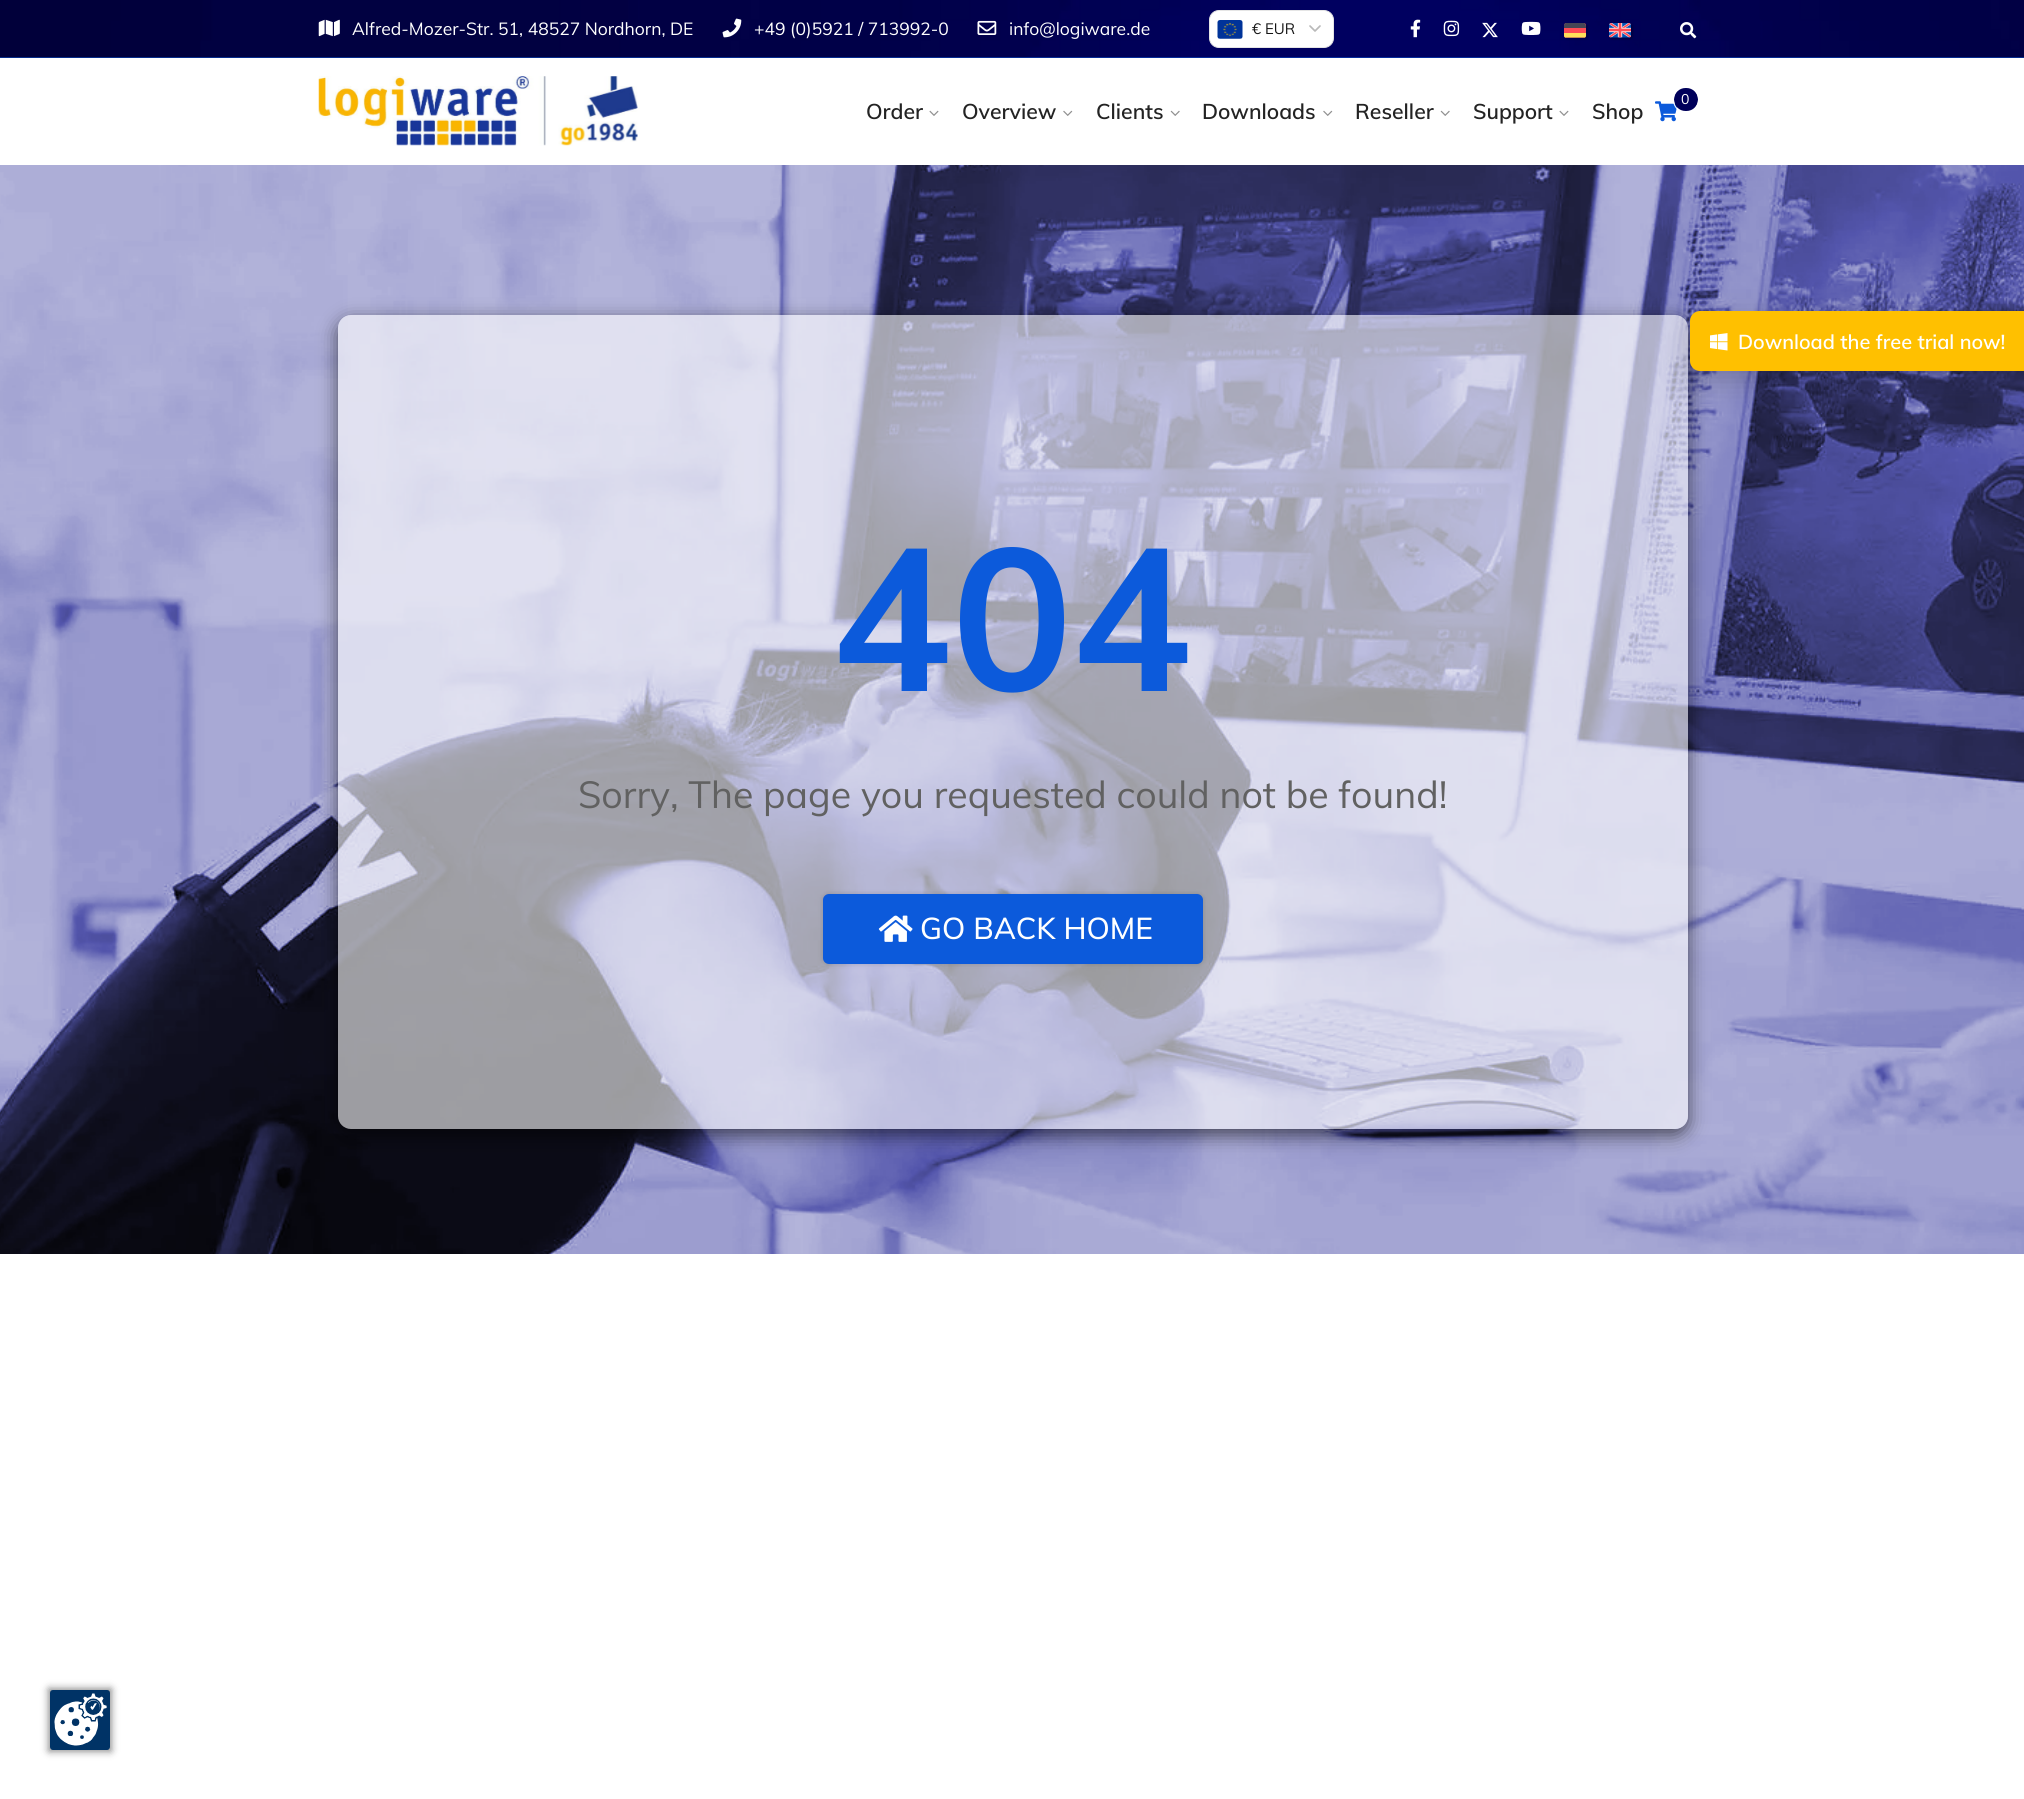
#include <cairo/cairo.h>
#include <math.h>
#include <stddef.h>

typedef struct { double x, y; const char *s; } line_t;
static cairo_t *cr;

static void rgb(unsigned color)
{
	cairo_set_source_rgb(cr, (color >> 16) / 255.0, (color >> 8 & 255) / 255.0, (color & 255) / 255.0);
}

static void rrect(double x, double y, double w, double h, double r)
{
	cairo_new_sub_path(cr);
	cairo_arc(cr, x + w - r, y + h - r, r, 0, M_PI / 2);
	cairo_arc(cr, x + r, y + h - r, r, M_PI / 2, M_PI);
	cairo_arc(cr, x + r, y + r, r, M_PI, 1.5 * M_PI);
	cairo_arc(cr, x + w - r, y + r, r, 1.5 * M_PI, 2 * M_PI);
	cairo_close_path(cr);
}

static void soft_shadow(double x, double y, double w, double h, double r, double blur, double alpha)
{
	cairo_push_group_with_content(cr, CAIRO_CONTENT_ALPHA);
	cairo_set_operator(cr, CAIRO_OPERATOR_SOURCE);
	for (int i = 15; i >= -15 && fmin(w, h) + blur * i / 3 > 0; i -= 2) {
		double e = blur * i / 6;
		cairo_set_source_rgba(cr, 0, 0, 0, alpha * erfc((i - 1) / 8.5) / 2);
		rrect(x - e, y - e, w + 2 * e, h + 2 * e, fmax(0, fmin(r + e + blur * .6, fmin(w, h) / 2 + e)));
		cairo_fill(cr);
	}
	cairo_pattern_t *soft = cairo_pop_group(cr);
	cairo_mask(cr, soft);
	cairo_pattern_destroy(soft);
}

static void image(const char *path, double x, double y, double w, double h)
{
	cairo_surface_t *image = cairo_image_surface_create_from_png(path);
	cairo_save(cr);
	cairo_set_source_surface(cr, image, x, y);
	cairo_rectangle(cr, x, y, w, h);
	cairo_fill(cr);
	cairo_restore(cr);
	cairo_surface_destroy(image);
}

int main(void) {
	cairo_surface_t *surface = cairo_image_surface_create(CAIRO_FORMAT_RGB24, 2024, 1799);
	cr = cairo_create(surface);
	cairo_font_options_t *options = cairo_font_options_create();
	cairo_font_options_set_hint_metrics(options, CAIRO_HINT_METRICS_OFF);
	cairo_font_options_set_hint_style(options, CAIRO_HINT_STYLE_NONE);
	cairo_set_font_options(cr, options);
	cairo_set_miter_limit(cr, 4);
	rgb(0xffffff);
	cairo_paint(cr);
	rgb(0x0c5adb);
	cairo_rectangle(cr, 0, 57, 2024, 1);
	cairo_fill(cr);
	image("img/1.png", 0, 0, 2024, 58);
	image("img/2.png", 318, 19, 22, 18);
	image("img/3.png", 722, 18, 20, 20);
	image("img/4.png", 977, 20, 20, 15);
	rgb(0xffffff);
	rrect(1209.5, 10.5, 124, 37, 9.5);
	cairo_fill_preserve(cr);
	rgb(0xe5e5e5);
	cairo_set_line_width(cr, 1);
	cairo_stroke(cr);
	image("img/5.png", 1217, 20, 26, 19);
	cairo_new_path(cr);
	cairo_move_to(cr, 1310, 26);
	cairo_line_to(cr, 1315, 31);
	cairo_line_to(cr, 1320, 26);
	rgb(0xb9b9b9);
	cairo_set_line_width(cr, 1.7);
	cairo_set_line_cap(cr, CAIRO_LINE_CAP_ROUND);
	cairo_set_line_join(cr, CAIRO_LINE_JOIN_ROUND);
	cairo_stroke(cr);
	image("img/6.png", 1410, 19, 11, 19);
	image("img/7.png", 1443, 20, 17, 17);
	image("img/8.png", 1482, 22, 16, 16);
	image("img/9.png", 1521, 21, 20, 14);
	rgb(0x000000);
	soft_shadow(1565, 24, 23, 15, 2.5, 1, 0.25);
	cairo_save(cr);
	cairo_rectangle(cr, 1564, 23, 22, 15);
	cairo_clip(cr);
	rgb(0xff4b55);
	cairo_new_path(cr);
	cairo_move_to(cr, 1566.5, 23);
	cairo_line_to(cr, 1583.5, 23);
	cairo_curve_to(cr, 1585, 23, 1586, 24, 1586, 25.5);
	cairo_line_to(cr, 1586, 35.5);
	cairo_curve_to(cr, 1586, 36.5, 1585.5, 37, 1585, 37.5);
	cairo_line_to(cr, 1565, 37.5);
	cairo_curve_to(cr, 1563, 36, 1564, 32.5, 1564, 30.5);
	cairo_curve_to(cr, 1564, 28.5, 1563, 23, 1566.5, 23);
	cairo_close_path(cr);
	cairo_fill(cr);
	rgb(0x464655);
	cairo_new_path(cr);
	cairo_move_to(cr, 1566.5, 23);
	cairo_line_to(cr, 1578, 23);
	cairo_curve_to(cr, 1584, 23, 1586, 21.5, 1586, 28);
	cairo_line_to(cr, 1564, 28);
	cairo_curve_to(cr, 1564, 26, 1563.5, 23, 1566.5, 23);
	cairo_close_path(cr);
	cairo_fill(cr);
	cairo_restore(cr);
	rgb(0xffe15a);
	cairo_new_path(cr);
	cairo_move_to(cr, 1564, 33);
	cairo_line_to(cr, 1586, 33);
	cairo_curve_to(cr, 1586, 34.5, 1586.5, 36.5, 1585, 37.5);
	cairo_line_to(cr, 1565, 37.5);
	cairo_curve_to(cr, 1564.5, 37, 1564, 36.5, 1564, 35.5);
	cairo_close_path(cr);
	cairo_fill(cr);
	rgb(0x000000);
	soft_shadow(1610, 24, 23, 15, 2.5, 1, 0.25);
	image("img/10.png", 1609, 23, 22, 15);
	image("img/11.png", 1680, 22, 17, 17);
	image("img/12.png", 318, 76, 320, 70);
	image("img/13.png", 1655, 101, 22, 21);
	rgb(0x00005a);
	rrect(1674, 88, 24, 23, 11.5);
	cairo_fill(cr);
	rrect(1673.5, 86.5, 25, 26, 12.5);
	rgb(0xffffff);
	cairo_set_line_width(cr, 1);
	cairo_set_line_cap(cr, CAIRO_LINE_CAP_BUTT);
	cairo_set_line_join(cr, CAIRO_LINE_JOIN_MITER);
	cairo_stroke(cr);
	image("img/14.png", 929, 110, 10, 6);
	image("img/15.png", 1063, 110, 10, 6);
	image("img/16.png", 1170, 110, 10, 6);
	image("img/15.png", 1323, 110, 10, 6);
	image("img/16.png", 1440, 110, 10, 6);
	image("img/14.png", 1559, 110, 10, 6);
	image("img/17.png", 0, 165, 2024, 1089);
	cairo_save(cr);
	cairo_set_fill_rule(cr, CAIRO_FILL_RULE_EVEN_ODD);
	cairo_new_path(cr);
	cairo_move_to(cr, 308, 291);
	cairo_line_to(cr, 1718, 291);
	cairo_line_to(cr, 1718, 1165);
	cairo_line_to(cr, 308, 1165);
	cairo_close_path(cr);
	cairo_move_to(cr, 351, 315);
	cairo_line_to(cr, 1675, 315);
	cairo_curve_to(cr, 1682, 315, 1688, 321, 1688, 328);
	cairo_line_to(cr, 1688, 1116);
	cairo_curve_to(cr, 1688, 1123, 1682, 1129, 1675, 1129);
	cairo_line_to(cr, 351, 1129);
	cairo_curve_to(cr, 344, 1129, 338, 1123, 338, 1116);
	cairo_line_to(cr, 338, 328);
	cairo_curve_to(cr, 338, 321, 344, 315, 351, 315);
	cairo_close_path(cr);
	cairo_clip(cr);
	rgb(0x000000);
	soft_shadow(338, 321, 1350, 814, 13, 9.5, 0.6);
	cairo_restore(cr);
	cairo_set_source_rgba(cr, 1, 1, 1, 0.6);
	rrect(338, 315, 1350, 814, 13);
	cairo_fill(cr);
	rgb(0x000000);
	soft_shadow(823, 894, 380, 70, 6, 2.5, 0.15);
	rgb(0x0c5adb);
	rrect(823, 894, 380, 70, 6);
	cairo_fill(cr);
	image("img/18.png", 878, 915, 35, 27);
	rgb(0x000000);
	soft_shadow(1690, 321, 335, 60, 10, 15, 0.2);
	rgb(0xffc000);
	cairo_new_path(cr);
	cairo_move_to(cr, 1700, 311);
	cairo_line_to(cr, 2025, 311);
	cairo_line_to(cr, 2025, 371);
	cairo_line_to(cr, 1700, 371);
	cairo_curve_to(cr, 1694.5, 371, 1690, 366.5, 1690, 361);
	cairo_line_to(cr, 1690, 321);
	cairo_curve_to(cr, 1690, 315.5, 1694.5, 311, 1700, 311);
	cairo_close_path(cr);
	cairo_fill(cr);
	image("img/19.png", 1710, 333, 18, 18);
	rgb(0x000000);
	soft_shadow(49, 1689, 62, 62, 0, 4, 0.5);
	image("img/20.png", 50, 1690, 60, 60);
	cairo_select_font_face(cr, "Muli", CAIRO_FONT_SLANT_NORMAL, CAIRO_FONT_WEIGHT_NORMAL);
	cairo_set_font_size(cr, 17.5);
	rgb(0xffffff);
	{
		static const line_t items[] = {
			{352, 35, "Alfred-Mozer-Str. 51, 48527 Nordhorn, DE"},
			{754, 35, "+49 (0)5921 / 713992-0"},
			{1009, 35, "info@logiware.de"},
		};
		for (size_t i = 0; i < sizeof items / sizeof *items; i++) {
			cairo_move_to(cr, items[i].x, items[i].y);
			cairo_show_text(cr, items[i].s);
		}
	}
	cairo_set_font_size(cr, 15);
	rgb(0x151515);
	cairo_move_to(cr, 1252, 34);
	cairo_show_text(cr, "€ EUR");
	cairo_set_font_size(cr, 14);
	rgb(0xffffff);
	cairo_move_to(cr, 1681, 104);
	cairo_show_text(cr, "0");
	cairo_select_font_face(cr, "Muli SemiBold", CAIRO_FONT_SLANT_NORMAL, CAIRO_FONT_WEIGHT_NORMAL);
	cairo_set_font_size(cr, 21.25);
	rgb(0x232323);
	{
		static const line_t items[] = {
			{866, 119, "Order"},
			{962, 119, "Overview"},
			{1096, 119, "Clients"},
			{1202, 119, "Downloads"},
			{1355, 119, "Reseller"},
			{1473, 119, "Support"},
			{1592, 119, "Shop"},
		};
		for (size_t i = 0; i < sizeof items / sizeof *items; i++) {
			cairo_move_to(cr, items[i].x, items[i].y);
			cairo_show_text(cr, items[i].s);
		}
	}
	cairo_select_font_face(cr, "Muli", CAIRO_FONT_SLANT_NORMAL, CAIRO_FONT_WEIGHT_BOLD);
	cairo_set_font_size(cr, 200);
	rgb(0x0c5adb);
	cairo_move_to(cr, 832, 691);
	cairo_show_text(cr, "404");
	cairo_select_font_face(cr, "Muli", CAIRO_FONT_SLANT_NORMAL, CAIRO_FONT_WEIGHT_NORMAL);
	cairo_set_font_size(cr, 37.5);
	rgb(0x616161);
	cairo_move_to(cr, 578, 808);
	cairo_show_text(cr, "Sorry, The page you requested could not be found!");
	cairo_select_font_face(cr, "Muli Medium", CAIRO_FONT_SLANT_NORMAL, CAIRO_FONT_WEIGHT_NORMAL);
	cairo_set_font_size(cr, 30);
	rgb(0xffffff);
	cairo_move_to(cr, 920, 939);
	cairo_show_text(cr, "GO BACK HOME");
	cairo_select_font_face(cr, "Muli SemiBold", CAIRO_FONT_SLANT_NORMAL, CAIRO_FONT_WEIGHT_NORMAL);
	cairo_set_font_size(cr, 20);
	cairo_move_to(cr, 1738, 349);
	cairo_show_text(cr, "Download the free trial now!");
	cairo_surface_write_to_png(surface, "page.png");
	cairo_font_options_destroy(options);
	cairo_destroy(cr);
	cairo_surface_destroy(surface);
	return 0;
}
